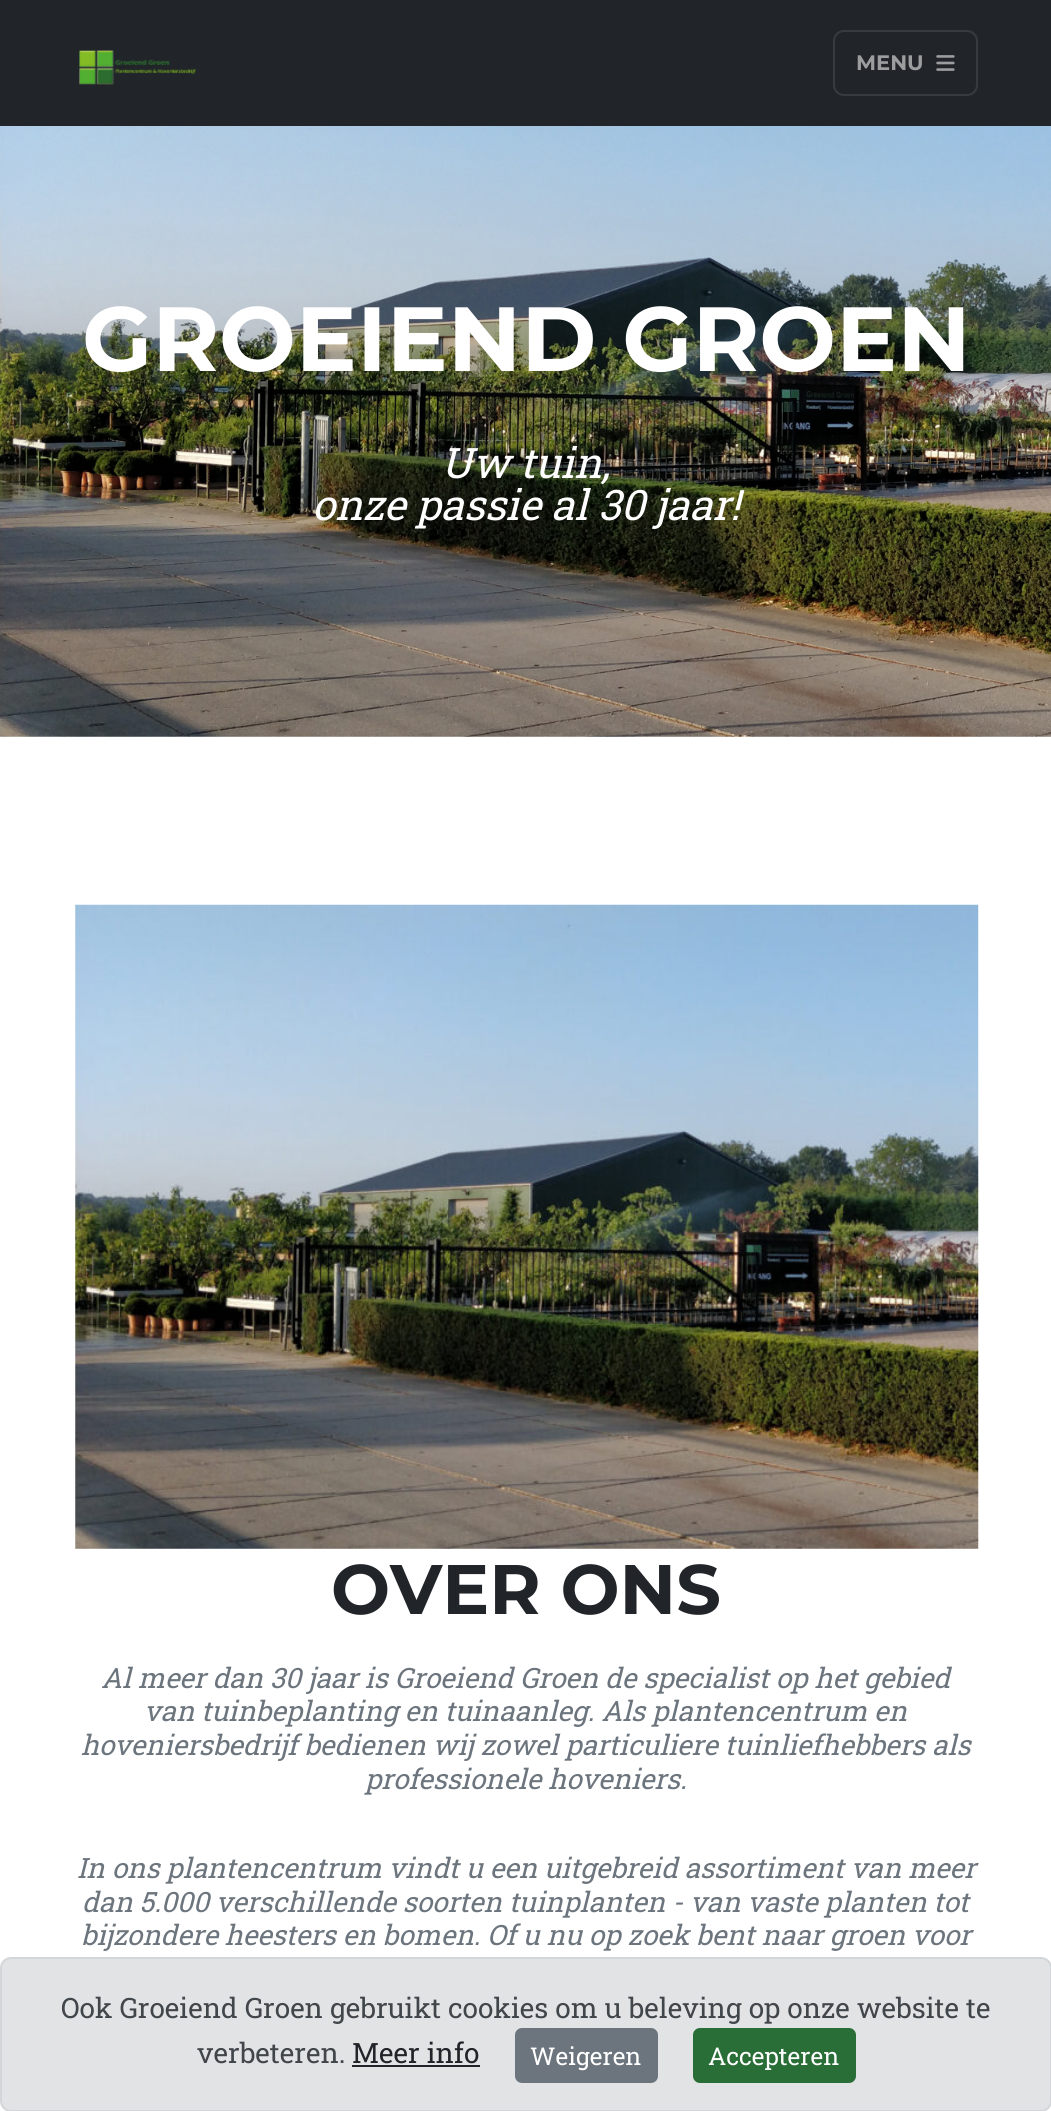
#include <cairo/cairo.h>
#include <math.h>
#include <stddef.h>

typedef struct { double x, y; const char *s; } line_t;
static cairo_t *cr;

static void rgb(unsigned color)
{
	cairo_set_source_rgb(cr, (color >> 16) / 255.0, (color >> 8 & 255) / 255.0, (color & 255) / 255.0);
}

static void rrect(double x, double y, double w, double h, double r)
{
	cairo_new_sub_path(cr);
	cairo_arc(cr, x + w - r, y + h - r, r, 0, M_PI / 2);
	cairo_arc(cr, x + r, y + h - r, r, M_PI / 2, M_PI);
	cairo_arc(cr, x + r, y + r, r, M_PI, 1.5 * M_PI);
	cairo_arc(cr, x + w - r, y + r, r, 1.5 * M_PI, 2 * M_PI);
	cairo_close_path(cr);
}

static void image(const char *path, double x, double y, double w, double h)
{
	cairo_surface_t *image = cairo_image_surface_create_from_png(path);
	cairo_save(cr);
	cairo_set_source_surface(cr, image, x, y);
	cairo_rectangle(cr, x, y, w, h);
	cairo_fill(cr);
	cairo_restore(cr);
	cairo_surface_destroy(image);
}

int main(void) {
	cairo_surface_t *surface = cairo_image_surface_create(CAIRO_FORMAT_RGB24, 1051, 2111);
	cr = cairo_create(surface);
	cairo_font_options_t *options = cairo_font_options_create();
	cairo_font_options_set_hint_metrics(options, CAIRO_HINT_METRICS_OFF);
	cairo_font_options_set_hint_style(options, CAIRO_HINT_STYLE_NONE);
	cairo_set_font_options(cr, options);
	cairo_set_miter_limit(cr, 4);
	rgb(0xffffff);
	cairo_paint(cr);
	rgb(0x212529);
	cairo_rectangle(cr, 0, 0, 1051, 126);
	cairo_fill(cr);
	image("img/1.png", 79, 50, 117, 35);
	rrect(834, 31, 143, 64, 10);
	rgb(0x373b3e);
	cairo_stroke(cr);
	image("img/2.png", 936, 55, 19, 16);
	image("img/3.png", 0, 126, 1051, 611);
	image("img/4.png", 75, 904, 904, 645);
	rgb(0xe2e3e5);
	rrect(1, 1958, 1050, 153, 10);
	cairo_fill_preserve(cr);
	rgb(0xd3d6d8);
	cairo_stroke(cr);
	rgb(0x212529);
	cairo_rectangle(cr, 352, 2065, 128, 2);
	cairo_fill(cr);
	rgb(0x6c757d);
	rrect(516, 2029, 141, 53, 6);
	cairo_fill_preserve(cr);
	cairo_stroke(cr);
	rgb(0x2a6e37);
	rrect(694, 2029, 161, 53, 6);
	cairo_fill_preserve(cr);
	cairo_stroke(cr);
	cairo_select_font_face(cr, "Montserrat", CAIRO_FONT_SLANT_NORMAL, CAIRO_FONT_WEIGHT_BOLD);
	cairo_set_font_size(cr, 21);
	rgb(0x9b9d9f);
	cairo_move_to(cr, 856, 70);
	cairo_show_text(cr, "MENU");
	cairo_set_font_size(cr, 91);
	rgb(0xffffff);
	cairo_move_to(cr, 82, 371);
	cairo_show_text(cr, "GROEIEND GROEN");
	cairo_select_font_face(cr, "Roboto Slab", CAIRO_FONT_SLANT_ITALIC, CAIRO_FONT_WEIGHT_NORMAL);
	cairo_set_font_size(cr, 42);
	cairo_move_to(cr, 441, 478);
	cairo_show_text(cr, "Uw tuin,");
	cairo_move_to(cr, 312, 520);
	cairo_show_text(cr, "onze passie al 30 jaar!");
	cairo_select_font_face(cr, "Montserrat", CAIRO_FONT_SLANT_NORMAL, CAIRO_FONT_WEIGHT_BOLD);
	cairo_set_font_size(cr, 70);
	rgb(0x212529);
	cairo_move_to(cr, 331, 1614);
	cairo_show_text(cr, "OVER ONS");
	cairo_select_font_face(cr, "Roboto Slab", CAIRO_FONT_SLANT_ITALIC, CAIRO_FONT_WEIGHT_NORMAL);
	cairo_set_font_size(cr, 28);
	rgb(0x6c757d);
	{
		static const line_t items[] = {
			{101, 1688, "Al meer dan 30 jaar is Groeiend Groen de specialist op het gebied"},
			{144, 1721, "van tuinbeplanting en tuinaanleg. Als plantencentrum en"},
			{81, 1755, "hoveniersbedrijf bedienen wij zowel particuliere tuinliefhebbers als"},
			{365, 1789, "professionele hoveniers."},
			{77, 1878, "In ons plantencentrum vindt u een uitgebreid assortiment van meer"},
			{82, 1912, "dan 5.000 verschillende soorten tuinplanten - van vaste planten tot"},
			{81, 1945, "bijzondere heesters en bomen. Of u nu op zoek bent naar groen voor"},
		};
		for (size_t i = 0; i < sizeof items / sizeof *items; i++) {
			cairo_move_to(cr, items[i].x, items[i].y);
			cairo_show_text(cr, items[i].s);
		}
	}
	cairo_select_font_face(cr, "Roboto Slab", CAIRO_FONT_SLANT_NORMAL, CAIRO_FONT_WEIGHT_NORMAL);
	rgb(0x41464b);
	cairo_move_to(cr, 61, 2018);
	cairo_show_text(cr, "Ook Groeiend Groen gebruikt cookies om u beleving op onze website te");
	cairo_move_to(cr, 197, 2063);
	cairo_show_text(cr, "verbeteren.");
	rgb(0x212529);
	cairo_move_to(cr, 352, 2063);
	cairo_show_text(cr, "Meer info");
	cairo_set_font_size(cr, 24.5);
	rgb(0xffffff);
	cairo_move_to(cr, 530, 2065);
	cairo_show_text(cr, "Weigeren");
	cairo_move_to(cr, 708, 2065);
	cairo_show_text(cr, "Accepteren");
	cairo_surface_write_to_png(surface, "page.png");
	cairo_font_options_destroy(options);
	cairo_destroy(cr);
	cairo_surface_destroy(surface);
	return 0;
}
